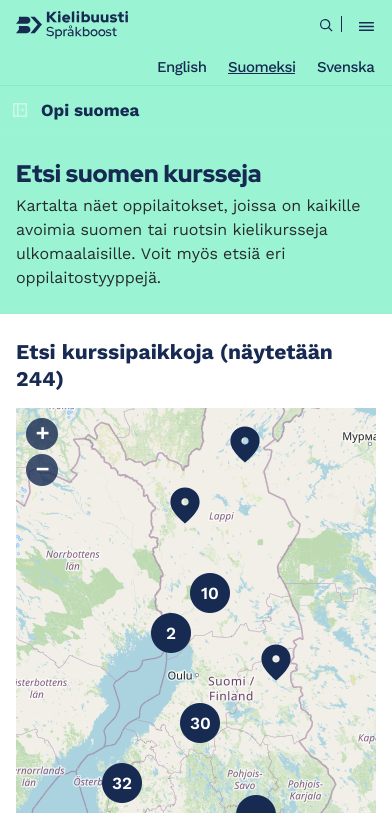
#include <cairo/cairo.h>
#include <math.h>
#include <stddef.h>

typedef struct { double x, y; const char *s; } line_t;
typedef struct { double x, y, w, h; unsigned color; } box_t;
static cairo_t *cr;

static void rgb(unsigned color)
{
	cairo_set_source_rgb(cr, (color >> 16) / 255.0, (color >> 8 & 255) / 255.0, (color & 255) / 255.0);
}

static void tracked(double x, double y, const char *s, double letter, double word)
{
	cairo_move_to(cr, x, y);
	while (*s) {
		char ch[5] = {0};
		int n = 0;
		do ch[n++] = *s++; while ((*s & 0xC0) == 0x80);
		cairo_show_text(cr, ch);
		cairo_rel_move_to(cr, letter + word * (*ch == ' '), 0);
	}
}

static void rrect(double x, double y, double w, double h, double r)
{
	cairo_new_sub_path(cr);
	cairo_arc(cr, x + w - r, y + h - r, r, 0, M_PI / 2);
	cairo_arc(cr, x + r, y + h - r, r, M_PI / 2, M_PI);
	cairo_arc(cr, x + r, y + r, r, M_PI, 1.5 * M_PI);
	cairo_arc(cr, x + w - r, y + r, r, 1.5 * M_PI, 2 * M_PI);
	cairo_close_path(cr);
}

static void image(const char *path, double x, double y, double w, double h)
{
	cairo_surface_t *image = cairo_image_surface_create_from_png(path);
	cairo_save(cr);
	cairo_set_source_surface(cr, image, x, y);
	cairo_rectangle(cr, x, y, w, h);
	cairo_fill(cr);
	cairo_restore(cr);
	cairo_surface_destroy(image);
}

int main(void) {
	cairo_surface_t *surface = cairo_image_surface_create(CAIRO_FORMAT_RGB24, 392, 813);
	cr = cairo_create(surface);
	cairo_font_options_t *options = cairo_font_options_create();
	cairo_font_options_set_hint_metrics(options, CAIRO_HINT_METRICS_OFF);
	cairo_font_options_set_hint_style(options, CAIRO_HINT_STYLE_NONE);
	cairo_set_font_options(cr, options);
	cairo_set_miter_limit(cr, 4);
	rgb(0xffffff);
	cairo_paint(cr);
	rgb(0x9af4d4);
	cairo_rectangle(cr, 0, 0, 392, 85);
	cairo_fill(cr);
	image("img/1.png", 16, 11, 112, 28);
	image("img/2.png", 320, 19, 13, 13);
	rgb(0x162a52);
	cairo_rectangle(cr, 341, 16, 1, 16);
	cairo_fill(cr);
	image("img/3.png", 359, 22, 15, 9);
	{
		static const box_t items[] = {
			{0, 85, 392, 1, 0x86ecc8},
			{228, 73, 67, 1, 0x162a52},
			{0, 86, 392, 47, 0x9af4d4},
			{0, 133, 392, 1, 0x9df4d5},
		};
		for (size_t i = 0; i < sizeof items / sizeof *items; i++) {
			rgb(items[i].color);
			cairo_rectangle(cr, items[i].x, items[i].y, items[i].w, items[i].h);
			cairo_fill(cr);
		}
	}
	image("img/4.png", 13, 103, 14, 14);
	rgb(0x9af4d4);
	cairo_rectangle(cr, 0, 134, 392, 180);
	cairo_fill(cr);
	image("img/5.png", 16, 408, 113, 184);
	cairo_set_source_rgba(cr, 0.086, 0.165, 0.322, 0.8);
	cairo_arc(cr, 42, 434, 16, 0, 2 * M_PI);
	cairo_fill(cr);
	cairo_arc(cr, 42, 470, 16, 0, 2 * M_PI);
	cairo_fill(cr);
	image("img/6.png", 129, 408, 247, 184);
	image("img/7.png", 16, 592, 113, 221);
	image("img/8.png", 129, 592, 247, 221);
	image("img/9.png", 230, 426, 30, 37);
	image("img/10.png", 170, 487, 30, 37);
	rgb(0x162a52);
	cairo_arc(cr, 210, 593, 20, 0, 2 * M_PI);
	cairo_fill(cr);
	cairo_arc(cr, 171, 633, 20, 0, 2 * M_PI);
	cairo_fill(cr);
	image("img/11.png", 261, 644, 30, 37);
	cairo_arc(cr, 200, 723, 20, 0, 2 * M_PI);
	cairo_fill(cr);
	cairo_arc(cr, 122, 783, 20, 0, 2 * M_PI);
	cairo_fill(cr);
	rrect(236, 795, 40, 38, 20);
	cairo_fill(cr);
	cairo_select_font_face(cr, "Work Sans Medium", CAIRO_FONT_SLANT_NORMAL, CAIRO_FONT_WEIGHT_NORMAL);
	cairo_set_font_size(cr, 15);
	{
		static const line_t items[] = {
			{157, 72, "English"},
			{228, 72, "Suomeksi"},
			{317, 72, "Svenska"},
		};
		for (size_t i = 0; i < sizeof items / sizeof *items; i++) {
			tracked(items[i].x, items[i].y, items[i].s, -0.5, 0);
		}
	}
	cairo_select_font_face(cr, "Work Sans", CAIRO_FONT_SLANT_NORMAL, CAIRO_FONT_WEIGHT_BOLD);
	cairo_set_font_size(cr, 17);
	cairo_move_to(cr, 41, 116);
	cairo_show_text(cr, "Opi suomea");
	cairo_select_font_face(cr, "Red Hat Display Black", CAIRO_FONT_SLANT_NORMAL, CAIRO_FONT_WEIGHT_NORMAL);
	cairo_set_font_size(cr, 24);
	cairo_move_to(cr, 16, 182);
	cairo_show_text(cr, "Etsi suomen kursseja");
	cairo_select_font_face(cr, "Work Sans", CAIRO_FONT_SLANT_NORMAL, CAIRO_FONT_WEIGHT_NORMAL);
	cairo_set_font_size(cr, 16);
	rgb(0x272a2e);
	{
		static const line_t items[] = {
			{16, 211, "Kartalta näet oppilaitokset, joissa on kaikille"},
			{16, 235, "avoimia suomen tai ruotsin kielikursseja"},
			{16, 259, "ulkomaalaisille. Voit myös etsiä eri"},
			{16, 283, "oppilaitostyyppejä."},
		};
		for (size_t i = 0; i < sizeof items / sizeof *items; i++) {
			tracked(items[i].x, items[i].y, items[i].s, -0.1, 0);
		}
	}
	cairo_select_font_face(cr, "Work Sans", CAIRO_FONT_SLANT_NORMAL, CAIRO_FONT_WEIGHT_BOLD);
	cairo_set_font_size(cr, 21);
	rgb(0x162a52);
	cairo_move_to(cr, 16, 359);
	cairo_show_text(cr, "Etsi kurssipaikkoja (näytetään");
	cairo_move_to(cr, 16, 386);
	cairo_show_text(cr, "244)");
	cairo_select_font_face(cr, "DejaVu Sans Mono", CAIRO_FONT_SLANT_NORMAL, CAIRO_FONT_WEIGHT_BOLD);
	cairo_set_font_size(cr, 22);
	rgb(0xffffff);
	cairo_move_to(cr, 36, 440);
	cairo_show_text(cr, "+");
	cairo_move_to(cr, 36, 476);
	cairo_show_text(cr, "−");
	cairo_select_font_face(cr, "Work Sans SemiBold", CAIRO_FONT_SLANT_NORMAL, CAIRO_FONT_WEIGHT_NORMAL);
	cairo_set_font_size(cr, 17);
	{
		static const line_t items[] = {
			{201, 599, "10"},
			{166, 639, "2"},
			{190, 729, "30"},
			{112, 789, "32"},
		};
		for (size_t i = 0; i < sizeof items / sizeof *items; i++) {
			cairo_move_to(cr, items[i].x, items[i].y);
			cairo_show_text(cr, items[i].s);
		}
	}
	cairo_surface_write_to_png(surface, "page.png");
	cairo_font_options_destroy(options);
	cairo_destroy(cr);
	cairo_surface_destroy(surface);
	return 0;
}
